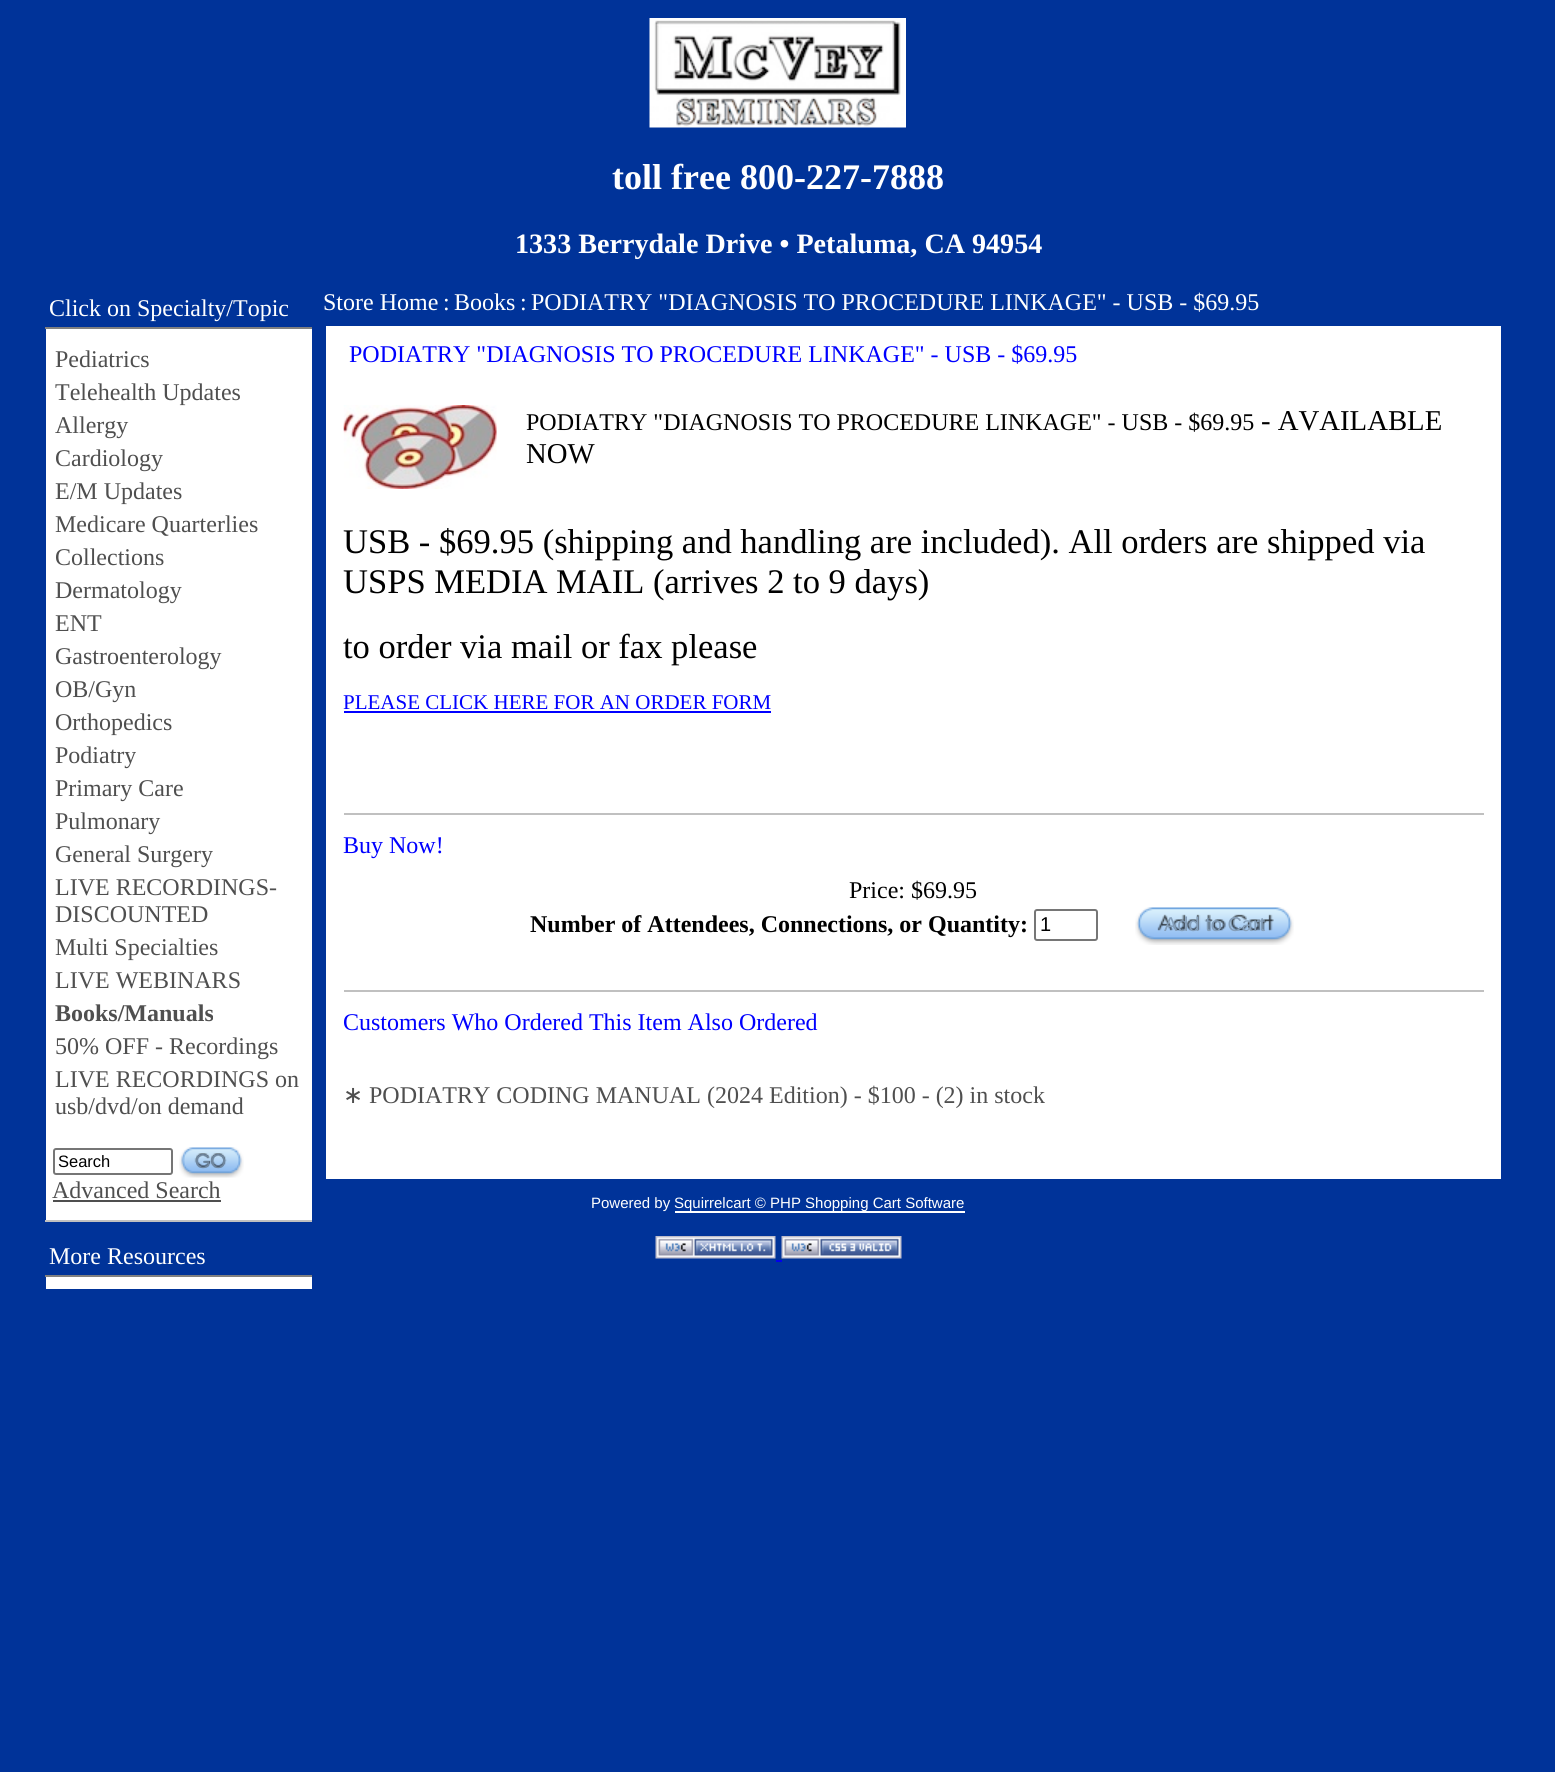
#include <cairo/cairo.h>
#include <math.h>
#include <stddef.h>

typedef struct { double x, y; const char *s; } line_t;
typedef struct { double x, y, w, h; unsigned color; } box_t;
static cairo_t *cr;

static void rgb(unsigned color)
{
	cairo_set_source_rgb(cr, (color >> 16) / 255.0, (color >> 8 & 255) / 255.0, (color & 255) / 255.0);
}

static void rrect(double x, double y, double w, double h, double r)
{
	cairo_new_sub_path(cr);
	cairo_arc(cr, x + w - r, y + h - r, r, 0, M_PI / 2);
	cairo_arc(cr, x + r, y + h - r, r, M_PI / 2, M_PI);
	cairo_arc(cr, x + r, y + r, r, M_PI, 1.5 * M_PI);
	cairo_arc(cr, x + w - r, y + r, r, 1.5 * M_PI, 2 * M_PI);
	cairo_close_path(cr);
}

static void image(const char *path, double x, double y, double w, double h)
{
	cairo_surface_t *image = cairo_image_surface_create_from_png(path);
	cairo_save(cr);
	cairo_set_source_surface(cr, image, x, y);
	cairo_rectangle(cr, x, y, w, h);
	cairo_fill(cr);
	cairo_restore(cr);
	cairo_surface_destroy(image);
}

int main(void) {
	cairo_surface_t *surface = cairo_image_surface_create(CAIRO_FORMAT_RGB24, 1555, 1772);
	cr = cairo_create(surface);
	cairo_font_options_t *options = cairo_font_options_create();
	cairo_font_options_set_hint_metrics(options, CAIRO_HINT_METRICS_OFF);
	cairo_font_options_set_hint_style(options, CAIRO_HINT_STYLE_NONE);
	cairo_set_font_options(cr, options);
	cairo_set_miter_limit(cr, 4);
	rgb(0x003399);
	cairo_paint(cr);
	image("img/1.png", 649, 18, 257, 110);
	{
		static const box_t items[] = {
			{46, 329, 266, 891, 0xffffff},
			{45, 327, 267, 2, 0x808080},
			{45, 1220, 267, 2, 0xc0c0c0},
		};
		for (size_t i = 0; i < sizeof items / sizeof *items; i++) {
			rgb(items[i].color);
			cairo_rectangle(cr, items[i].x, items[i].y, items[i].w, items[i].h);
			cairo_fill(cr);
		}
	}
	rrect(54, 1149, 118, 25, 2);
	rgb(0x767676);
	cairo_stroke(cr);
	image("img/2.png", 179, 1147, 65, 31);
	{
		static const box_t items[] = {
			{53, 1200, 168, 2, 0x4f4f4f},
			{46, 1277, 266, 12, 0xffffff},
			{45, 1275, 267, 2, 0x808080},
			{326, 326, 1175, 853, 0xffffff},
		};
		for (size_t i = 0; i < sizeof items / sizeof *items; i++) {
			rgb(items[i].color);
			cairo_rectangle(cr, items[i].x, items[i].y, items[i].w, items[i].h);
			cairo_fill(cr);
		}
	}
	image("img/3.png", 343, 405, 154, 84);
	rgb(0x0000ff);
	cairo_rectangle(cr, 344, 711, 427, 2);
	cairo_fill(cr);
	rgb(0xc0c0c0);
	cairo_rectangle(cr, 344, 813, 1140, 2);
	cairo_fill(cr);
	rrect(1035, 910, 62, 30, 2);
	rgb(0x767676);
	cairo_stroke(cr);
	image("img/4.png", 1135, 907, 159, 38);
	rgb(0xc0c0c0);
	cairo_rectangle(cr, 344, 990, 1140, 2);
	cairo_fill(cr);
	rgb(0xffffff);
	cairo_rectangle(cr, 675, 1211, 290, 2);
	cairo_fill(cr);
	image("img/5.png", 655, 1236, 121, 23);
	image("img/6.png", 781, 1236, 121, 23);
	rgb(0x0000ee);
	cairo_rectangle(cr, 776, 1260, 6, 2);
	cairo_fill(cr);
	cairo_select_font_face(cr, "Liberation Serif", CAIRO_FONT_SLANT_NORMAL, CAIRO_FONT_WEIGHT_BOLD);
	cairo_set_font_size(cr, 36);
	rgb(0xffffff);
	cairo_move_to(cr, 612, 189);
	cairo_show_text(cr, "toll free 800-227-7888");
	cairo_set_font_size(cr, 28.1);
	cairo_move_to(cr, 515, 253);
	cairo_show_text(cr, "1333 Berrydale Drive • Petaluma, CA 94954");
	cairo_select_font_face(cr, "Liberation Serif", CAIRO_FONT_SLANT_NORMAL, CAIRO_FONT_WEIGHT_NORMAL);
	cairo_set_font_size(cr, 24);
	cairo_move_to(cr, 49, 316);
	cairo_show_text(cr, "Click on Specialty/Topic");
	rgb(0x4f4f4f);
	{
		static const line_t items[] = {
			{55, 367, "Pediatrics"},
			{55, 400, "Telehealth Updates"},
			{55, 433, "Allergy"},
			{55, 466, "Cardiology"},
			{55, 499, "E/M Updates"},
			{55, 532, "Medicare Quarterlies"},
			{55, 565, "Collections"},
			{55, 598, "Dermatology"},
			{55, 631, "ENT"},
			{55, 664, "Gastroenterology"},
			{55, 697, "OB/Gyn"},
			{55, 730, "Orthopedics"},
			{55, 763, "Podiatry"},
			{55, 796, "Primary Care"},
			{55, 829, "Pulmonary"},
			{55, 862, "General Surgery"},
			{55, 895, "LIVE RECORDINGS-"},
			{55, 922, "DISCOUNTED"},
			{55, 955, "Multi Specialties"},
			{55, 988, "LIVE WEBINARS"},
		};
		for (size_t i = 0; i < sizeof items / sizeof *items; i++) {
			cairo_move_to(cr, items[i].x, items[i].y);
			cairo_show_text(cr, items[i].s);
		}
	}
	cairo_select_font_face(cr, "Liberation Serif", CAIRO_FONT_SLANT_NORMAL, CAIRO_FONT_WEIGHT_BOLD);
	cairo_move_to(cr, 55, 1021);
	cairo_show_text(cr, "Books/Manuals");
	cairo_select_font_face(cr, "Liberation Serif", CAIRO_FONT_SLANT_NORMAL, CAIRO_FONT_WEIGHT_NORMAL);
	{
		static const line_t items[] = {
			{55, 1054, "50% OFF - Recordings"},
			{55, 1087, "LIVE RECORDINGS on"},
			{55, 1114, "usb/dvd/on demand"},
		};
		for (size_t i = 0; i < sizeof items / sizeof *items; i++) {
			cairo_move_to(cr, items[i].x, items[i].y);
			cairo_show_text(cr, items[i].s);
		}
	}
	cairo_select_font_face(cr, "Liberation Sans", CAIRO_FONT_SLANT_NORMAL, CAIRO_FONT_WEIGHT_NORMAL);
	cairo_set_font_size(cr, 16.5);
	rgb(0x000000);
	cairo_move_to(cr, 58, 1167);
	cairo_show_text(cr, "Search");
	cairo_set_font_size(cr, 20);
	rgb(0x70879f);
	cairo_move_to(cr, 195, 1168);
	cairo_show_text(cr, "GO");
	cairo_select_font_face(cr, "Liberation Serif", CAIRO_FONT_SLANT_NORMAL, CAIRO_FONT_WEIGHT_NORMAL);
	cairo_set_font_size(cr, 24);
	rgb(0x4f4f4f);
	cairo_move_to(cr, 52, 1198);
	cairo_show_text(cr, "Advanced Search");
	rgb(0xffffff);
	{
		static const line_t items[] = {
			{49, 1264, "More Resources"},
			{323, 310, "Store Home"},
			{443, 310, ":"},
			{454, 310, "Books"},
			{520, 310, ":"},
			{531, 310, "PODIATRY \"DIAGNOSIS TO PROCEDURE LINKAGE\" - USB - $69.95"},
		};
		for (size_t i = 0; i < sizeof items / sizeof *items; i++) {
			cairo_move_to(cr, items[i].x, items[i].y);
			cairo_show_text(cr, items[i].s);
		}
	}
	rgb(0x0000ff);
	cairo_move_to(cr, 349, 362);
	cairo_show_text(cr, "PODIATRY \"DIAGNOSIS TO PROCEDURE LINKAGE\" - USB - $69.95");
	rgb(0x000000);
	cairo_move_to(cr, 526, 430);
	cairo_show_text(cr, "PODIATRY \"DIAGNOSIS TO PROCEDURE LINKAGE\" - USB - $69.95");
	cairo_set_font_size(cr, 28.75);
	cairo_move_to(cr, 1261, 430);
	cairo_show_text(cr, "- AVAILABLE");
	cairo_move_to(cr, 526, 463);
	cairo_show_text(cr, "NOW");
	cairo_set_font_size(cr, 34.55);
	{
		static const line_t items[] = {
			{343, 553, "USB - $69.95 (shipping and handling are included). All orders are shipped via"},
			{343, 593, "USPS MEDIA MAIL (arrives 2 to 9 days)"},
			{343, 658, "to order via mail or fax please"},
		};
		for (size_t i = 0; i < sizeof items / sizeof *items; i++) {
			cairo_move_to(cr, items[i].x, items[i].y);
			cairo_show_text(cr, items[i].s);
		}
	}
	cairo_set_font_size(cr, 21);
	rgb(0x0000ff);
	cairo_move_to(cr, 343, 709);
	cairo_show_text(cr, "PLEASE CLICK HERE FOR AN ORDER FORM");
	cairo_set_font_size(cr, 24);
	cairo_move_to(cr, 343, 853);
	cairo_show_text(cr, "Buy Now!");
	rgb(0x000000);
	cairo_move_to(cr, 849, 898);
	cairo_show_text(cr, "Price: $69.95");
	cairo_select_font_face(cr, "Liberation Serif", CAIRO_FONT_SLANT_NORMAL, CAIRO_FONT_WEIGHT_BOLD);
	cairo_move_to(cr, 530, 932);
	cairo_show_text(cr, "Number of Attendees, Connections, or Quantity:");
	cairo_select_font_face(cr, "Liberation Sans", CAIRO_FONT_SLANT_NORMAL, CAIRO_FONT_WEIGHT_NORMAL);
	cairo_set_font_size(cr, 20);
	cairo_move_to(cr, 1040, 931);
	cairo_show_text(cr, "1");
	rgb(0x859fba);
	cairo_move_to(cr, 1164, 931);
	cairo_show_text(cr, "Add to Cart");
	cairo_select_font_face(cr, "Liberation Serif", CAIRO_FONT_SLANT_NORMAL, CAIRO_FONT_WEIGHT_NORMAL);
	cairo_set_font_size(cr, 24);
	rgb(0x0000ff);
	cairo_move_to(cr, 343, 1030);
	cairo_show_text(cr, "Customers Who Ordered This Item Also Ordered");
	cairo_select_font_face(cr, "DejaVu Sans", CAIRO_FONT_SLANT_NORMAL, CAIRO_FONT_WEIGHT_NORMAL);
	rgb(0x4f4f4f);
	cairo_move_to(cr, 343, 1103);
	cairo_show_text(cr, "∗");
	cairo_select_font_face(cr, "Liberation Serif", CAIRO_FONT_SLANT_NORMAL, CAIRO_FONT_WEIGHT_NORMAL);
	cairo_move_to(cr, 369, 1103);
	cairo_show_text(cr, "PODIATRY CODING MANUAL (2024 Edition) - $100 - (2) in stock");
	cairo_select_font_face(cr, "Liberation Sans", CAIRO_FONT_SLANT_NORMAL, CAIRO_FONT_WEIGHT_NORMAL);
	cairo_set_font_size(cr, 15);
	rgb(0xffffff);
	cairo_move_to(cr, 591, 1208);
	cairo_show_text(cr, "Powered by");
	cairo_move_to(cr, 674, 1208);
	cairo_show_text(cr, "Squirrelcart © PHP Shopping Cart Software");
	cairo_surface_write_to_png(surface, "page.png");
	cairo_font_options_destroy(options);
	cairo_destroy(cr);
	cairo_surface_destroy(surface);
	return 0;
}
